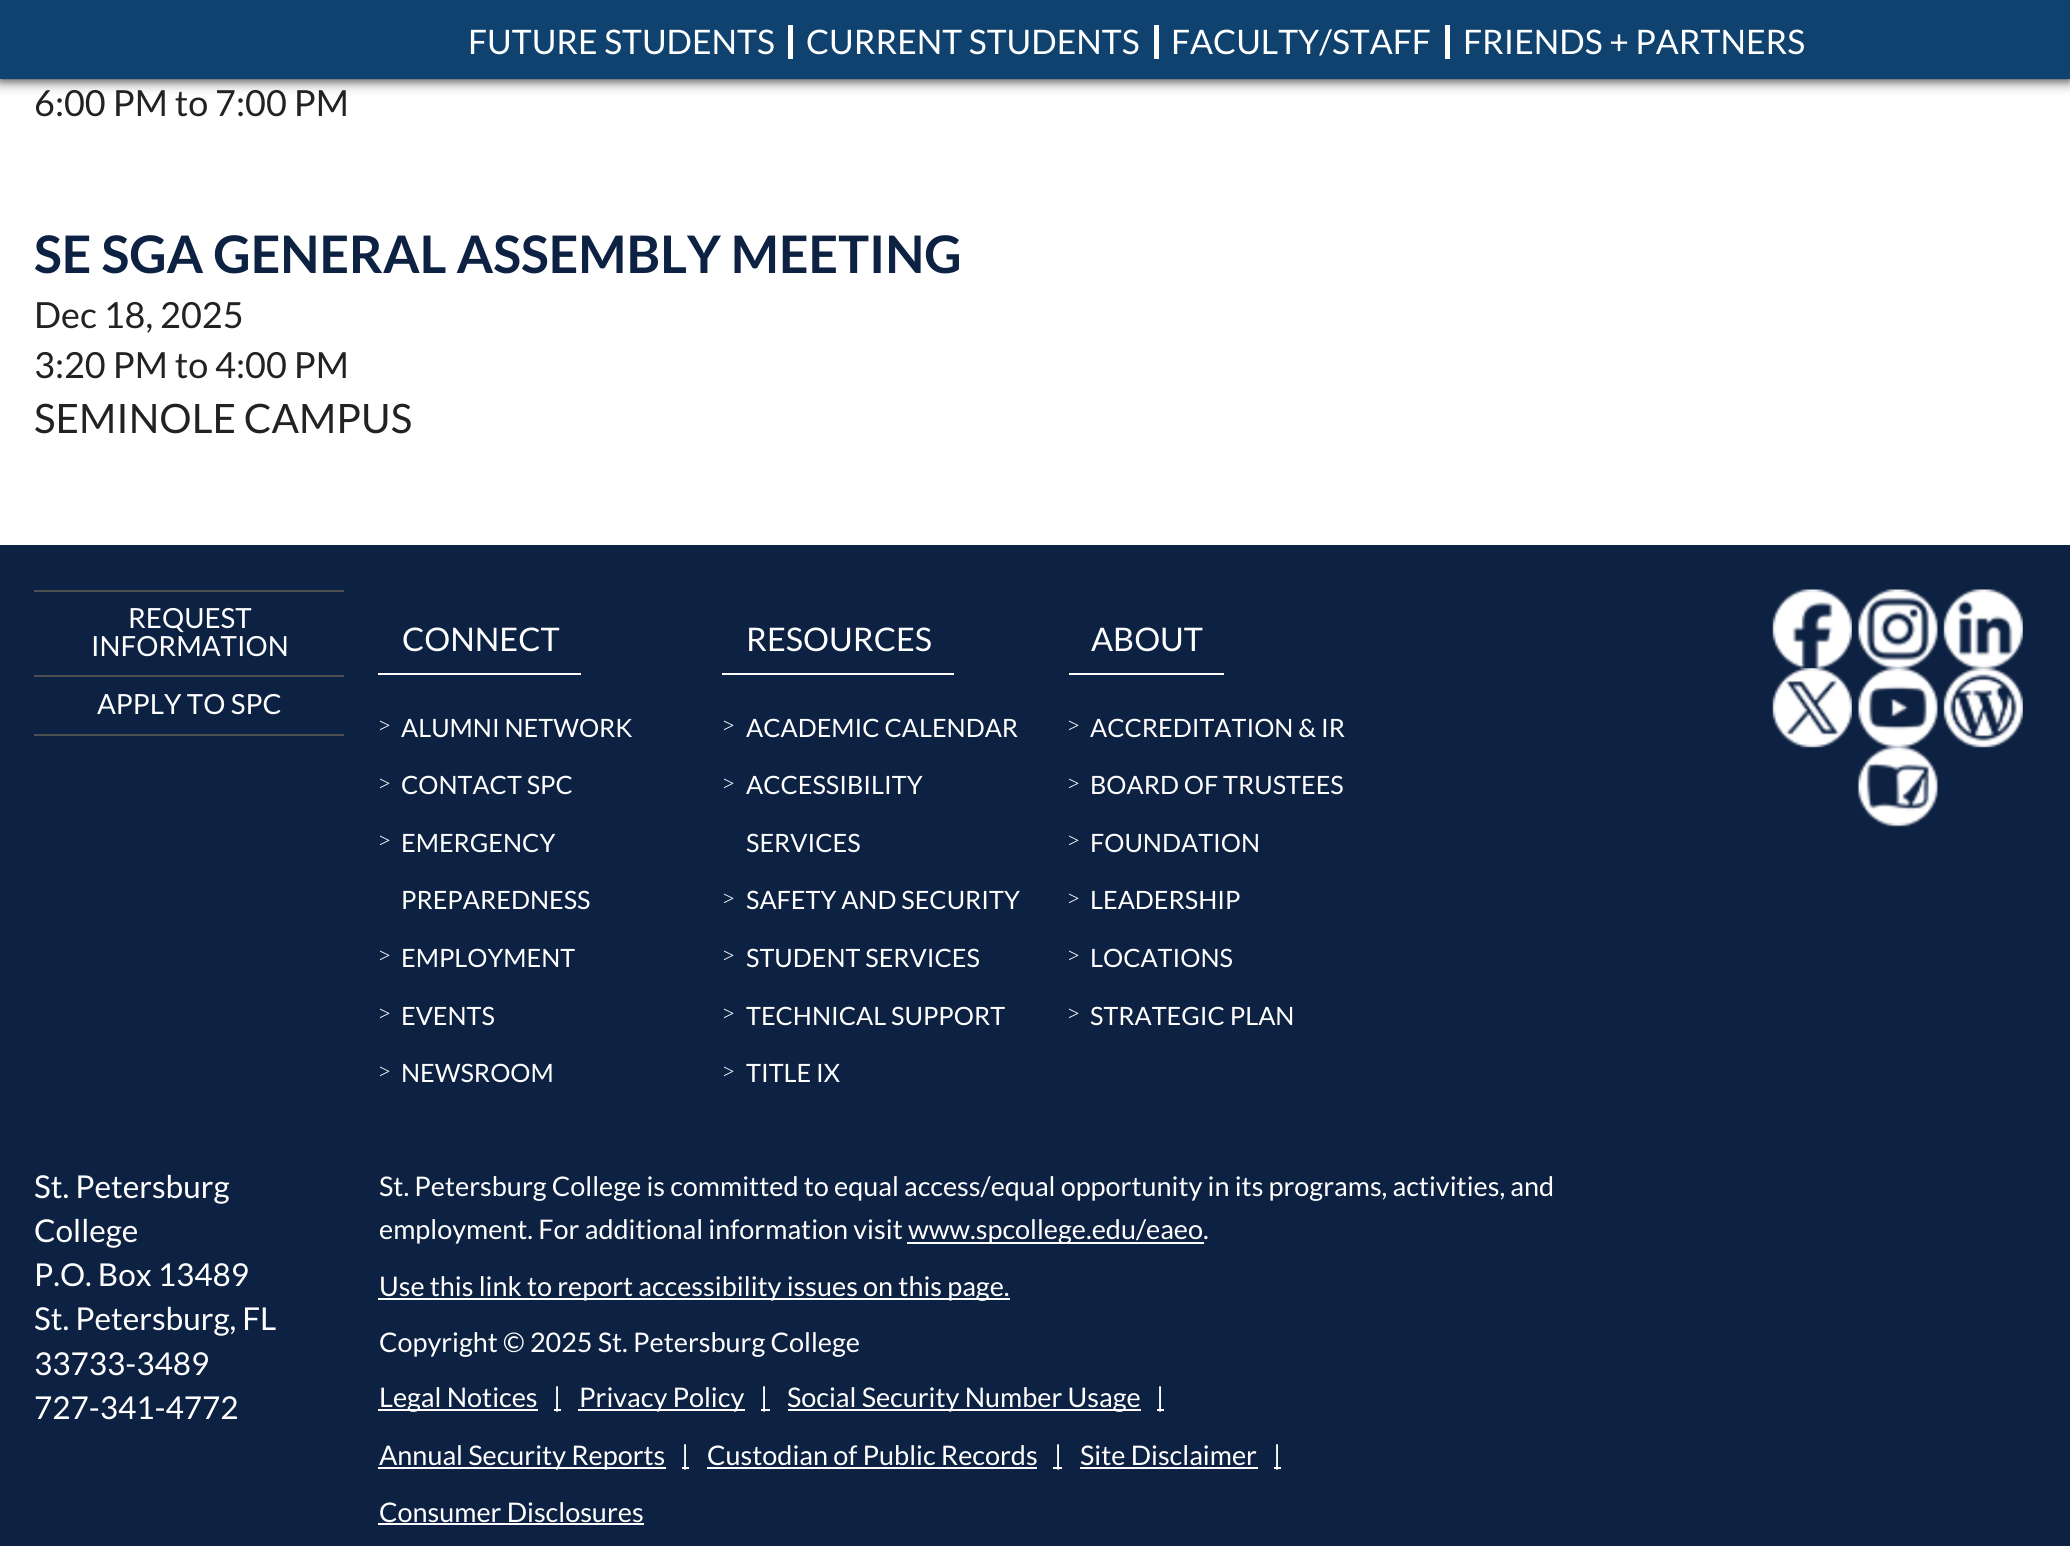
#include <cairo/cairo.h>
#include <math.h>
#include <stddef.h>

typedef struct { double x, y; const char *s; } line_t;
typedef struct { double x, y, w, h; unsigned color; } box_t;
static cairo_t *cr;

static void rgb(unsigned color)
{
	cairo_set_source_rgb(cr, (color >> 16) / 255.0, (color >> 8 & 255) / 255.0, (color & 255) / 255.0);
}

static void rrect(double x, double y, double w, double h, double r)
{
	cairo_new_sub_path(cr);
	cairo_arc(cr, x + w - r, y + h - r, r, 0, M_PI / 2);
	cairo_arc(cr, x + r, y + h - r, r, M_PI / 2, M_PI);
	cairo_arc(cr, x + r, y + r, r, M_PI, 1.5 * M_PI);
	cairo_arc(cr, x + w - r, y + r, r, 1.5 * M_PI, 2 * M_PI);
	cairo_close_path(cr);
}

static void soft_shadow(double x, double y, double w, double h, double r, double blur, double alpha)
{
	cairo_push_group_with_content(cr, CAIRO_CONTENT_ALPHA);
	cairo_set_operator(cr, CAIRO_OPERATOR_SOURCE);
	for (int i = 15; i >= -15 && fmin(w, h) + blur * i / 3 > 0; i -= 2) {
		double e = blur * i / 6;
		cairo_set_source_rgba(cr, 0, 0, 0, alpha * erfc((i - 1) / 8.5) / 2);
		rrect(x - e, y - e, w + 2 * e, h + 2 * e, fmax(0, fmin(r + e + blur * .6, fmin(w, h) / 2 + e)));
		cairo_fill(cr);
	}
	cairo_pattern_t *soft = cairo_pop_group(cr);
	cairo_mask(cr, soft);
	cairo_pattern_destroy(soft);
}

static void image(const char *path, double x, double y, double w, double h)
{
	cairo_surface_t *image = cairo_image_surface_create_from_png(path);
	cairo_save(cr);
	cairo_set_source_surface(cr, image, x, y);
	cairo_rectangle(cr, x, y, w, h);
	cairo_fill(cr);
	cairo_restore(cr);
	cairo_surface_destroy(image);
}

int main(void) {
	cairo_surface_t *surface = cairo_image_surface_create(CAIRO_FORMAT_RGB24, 2070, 1546);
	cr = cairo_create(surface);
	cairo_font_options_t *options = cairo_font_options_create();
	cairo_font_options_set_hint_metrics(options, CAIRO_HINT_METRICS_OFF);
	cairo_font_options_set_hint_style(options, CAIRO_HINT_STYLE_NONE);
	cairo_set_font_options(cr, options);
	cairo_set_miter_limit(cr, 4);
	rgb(0xffffff);
	cairo_paint(cr);
	rgb(0x000000);
	soft_shadow(0, 0, 2070, 79, 0, 7, 1);
	{
		static const box_t items[] = {
			{0, 0, 2070, 79, 0x0f426f},
			{788, 25, 5, 34, 0xffffff},
			{1154, 25, 5, 34, 0xffffff},
			{1445, 25, 5, 34, 0xffffff},
			{0, 545, 2070, 1001, 0x0d2142},
			{34, 590, 310, 2, 0x4e4e4e},
			{34, 675, 310, 2, 0x4e4e4e},
			{34, 734, 310, 2, 0x4e4e4e},
			{378, 673, 203, 2, 0xffffff},
			{722, 673, 232, 2, 0xffffff},
			{1069, 673, 155, 2, 0xffffff},
		};
		for (size_t i = 0; i < sizeof items / sizeof *items; i++) {
			rgb(items[i].color);
			cairo_rectangle(cr, items[i].x, items[i].y, items[i].w, items[i].h);
			cairo_fill(cr);
		}
	}
	image("img/1.png", 1772, 589, 80, 80);
	image("img/2.png", 1857, 589, 81, 80);
	image("img/3.png", 1943, 589, 80, 80);
	image("img/4.png", 1772, 668, 80, 80);
	image("img/5.png", 1857, 668, 81, 80);
	image("img/6.png", 1943, 668, 80, 80);
	image("img/7.png", 1857, 746, 81, 81);
	{
		static const box_t items[] = {
			{907, 1242, 297, 2, 0xffffff},
			{378, 1298, 632, 2, 0xffffff},
			{378, 1409, 160, 2, 0xffffff},
			{554, 1409, 7, 2, 0xffffff},
			{578, 1409, 167, 2, 0xffffff},
			{761, 1409, 9, 2, 0xffffff},
			{788, 1409, 353, 2, 0xffffff},
			{1157, 1409, 7, 2, 0xffffff},
			{378, 1467, 288, 2, 0xffffff},
			{682, 1467, 7, 2, 0xffffff},
			{707, 1467, 330, 2, 0xffffff},
			{1053, 1467, 9, 2, 0xffffff},
			{1080, 1467, 178, 2, 0xffffff},
			{1274, 1467, 7, 2, 0xffffff},
			{378, 1523, 266, 2, 0xffffff},
		};
		for (size_t i = 0; i < sizeof items / sizeof *items; i++) {
			rgb(items[i].color);
			cairo_rectangle(cr, items[i].x, items[i].y, items[i].w, items[i].h);
			cairo_fill(cr);
		}
	}
	cairo_select_font_face(cr, "Lato", CAIRO_FONT_SLANT_NORMAL, CAIRO_FONT_WEIGHT_NORMAL);
	cairo_set_font_size(cr, 33.75);
	{
		static const line_t items[] = {
			{468, 54, "FUTURE STUDENTS"},
			{806, 54, "CURRENT STUDENTS"},
			{1171, 54, "FACULTY/STAFF"},
			{1463, 54, "FRIENDS + PARTNERS"},
		};
		for (size_t i = 0; i < sizeof items / sizeof *items; i++) {
			cairo_move_to(cr, items[i].x, items[i].y);
			cairo_show_text(cr, items[i].s);
		}
	}
	cairo_set_font_size(cr, 36);
	rgb(0x222222);
	cairo_move_to(cr, 34, 116);
	cairo_show_text(cr, "6:00 PM to 7:00 PM");
	cairo_select_font_face(cr, "Lato", CAIRO_FONT_SLANT_NORMAL, CAIRO_FONT_WEIGHT_BOLD);
	cairo_set_font_size(cr, 51.75);
	rgb(0x0d2142);
	cairo_move_to(cr, 34, 273);
	cairo_show_text(cr, "SE SGA GENERAL ASSEMBLY MEETING");
	cairo_select_font_face(cr, "Lato", CAIRO_FONT_SLANT_NORMAL, CAIRO_FONT_WEIGHT_NORMAL);
	cairo_set_font_size(cr, 36);
	rgb(0x222222);
	cairo_move_to(cr, 34, 328);
	cairo_show_text(cr, "Dec 18, 2025");
	cairo_move_to(cr, 34, 378);
	cairo_show_text(cr, "3:20 PM to 4:00 PM");
	cairo_set_font_size(cr, 40.5);
	cairo_move_to(cr, 34, 433);
	cairo_show_text(cr, "SEMINOLE CAMPUS");
	cairo_set_font_size(cr, 27.75);
	rgb(0xffffff);
	{
		static const line_t items[] = {
			{128, 628, "REQUEST"},
			{91, 656, "INFORMATION"},
			{97, 714, "APPLY TO SPC"},
		};
		for (size_t i = 0; i < sizeof items / sizeof *items; i++) {
			cairo_move_to(cr, items[i].x, items[i].y);
			cairo_show_text(cr, items[i].s);
		}
	}
	cairo_set_font_size(cr, 32.5);
	cairo_move_to(cr, 402, 651);
	cairo_show_text(cr, "CONNECT");
	cairo_select_font_face(cr, "Liberation Serif", CAIRO_FONT_SLANT_NORMAL, CAIRO_FONT_WEIGHT_NORMAL);
	cairo_set_font_size(cr, 20);
	cairo_move_to(cr, 379, 732);
	cairo_show_text(cr, ">");
	cairo_select_font_face(cr, "Lato", CAIRO_FONT_SLANT_NORMAL, CAIRO_FONT_WEIGHT_NORMAL);
	cairo_set_font_size(cr, 25.25);
	cairo_move_to(cr, 401, 737);
	cairo_show_text(cr, "ALUMNI NETWORK");
	cairo_select_font_face(cr, "Liberation Serif", CAIRO_FONT_SLANT_NORMAL, CAIRO_FONT_WEIGHT_NORMAL);
	cairo_set_font_size(cr, 20);
	cairo_move_to(cr, 379, 790);
	cairo_show_text(cr, ">");
	cairo_select_font_face(cr, "Lato", CAIRO_FONT_SLANT_NORMAL, CAIRO_FONT_WEIGHT_NORMAL);
	cairo_set_font_size(cr, 25.25);
	cairo_move_to(cr, 401, 794);
	cairo_show_text(cr, "CONTACT SPC");
	cairo_select_font_face(cr, "Liberation Serif", CAIRO_FONT_SLANT_NORMAL, CAIRO_FONT_WEIGHT_NORMAL);
	cairo_set_font_size(cr, 20);
	cairo_move_to(cr, 379, 847);
	cairo_show_text(cr, ">");
	cairo_select_font_face(cr, "Lato", CAIRO_FONT_SLANT_NORMAL, CAIRO_FONT_WEIGHT_NORMAL);
	cairo_set_font_size(cr, 25.25);
	cairo_move_to(cr, 401, 852);
	cairo_show_text(cr, "EMERGENCY");
	cairo_move_to(cr, 401, 909);
	cairo_show_text(cr, "PREPAREDNESS");
	cairo_select_font_face(cr, "Liberation Serif", CAIRO_FONT_SLANT_NORMAL, CAIRO_FONT_WEIGHT_NORMAL);
	cairo_set_font_size(cr, 20);
	cairo_move_to(cr, 379, 962);
	cairo_show_text(cr, ">");
	cairo_select_font_face(cr, "Lato", CAIRO_FONT_SLANT_NORMAL, CAIRO_FONT_WEIGHT_NORMAL);
	cairo_set_font_size(cr, 25.25);
	cairo_move_to(cr, 401, 967);
	cairo_show_text(cr, "EMPLOYMENT");
	cairo_select_font_face(cr, "Liberation Serif", CAIRO_FONT_SLANT_NORMAL, CAIRO_FONT_WEIGHT_NORMAL);
	cairo_set_font_size(cr, 20);
	cairo_move_to(cr, 379, 1020);
	cairo_show_text(cr, ">");
	cairo_select_font_face(cr, "Lato", CAIRO_FONT_SLANT_NORMAL, CAIRO_FONT_WEIGHT_NORMAL);
	cairo_set_font_size(cr, 25.25);
	cairo_move_to(cr, 401, 1025);
	cairo_show_text(cr, "EVENTS");
	cairo_select_font_face(cr, "Liberation Serif", CAIRO_FONT_SLANT_NORMAL, CAIRO_FONT_WEIGHT_NORMAL);
	cairo_set_font_size(cr, 20);
	cairo_move_to(cr, 379, 1078);
	cairo_show_text(cr, ">");
	cairo_select_font_face(cr, "Lato", CAIRO_FONT_SLANT_NORMAL, CAIRO_FONT_WEIGHT_NORMAL);
	cairo_set_font_size(cr, 25.25);
	cairo_move_to(cr, 401, 1082);
	cairo_show_text(cr, "NEWSROOM");
	cairo_set_font_size(cr, 32.5);
	cairo_move_to(cr, 746, 651);
	cairo_show_text(cr, "RESOURCES");
	cairo_select_font_face(cr, "Liberation Serif", CAIRO_FONT_SLANT_NORMAL, CAIRO_FONT_WEIGHT_NORMAL);
	cairo_set_font_size(cr, 20);
	cairo_move_to(cr, 723, 732);
	cairo_show_text(cr, ">");
	cairo_select_font_face(cr, "Lato", CAIRO_FONT_SLANT_NORMAL, CAIRO_FONT_WEIGHT_NORMAL);
	cairo_set_font_size(cr, 25.25);
	cairo_move_to(cr, 746, 737);
	cairo_show_text(cr, "ACADEMIC CALENDAR");
	cairo_select_font_face(cr, "Liberation Serif", CAIRO_FONT_SLANT_NORMAL, CAIRO_FONT_WEIGHT_NORMAL);
	cairo_set_font_size(cr, 20);
	cairo_move_to(cr, 723, 790);
	cairo_show_text(cr, ">");
	cairo_select_font_face(cr, "Lato", CAIRO_FONT_SLANT_NORMAL, CAIRO_FONT_WEIGHT_NORMAL);
	cairo_set_font_size(cr, 25.25);
	cairo_move_to(cr, 746, 794);
	cairo_show_text(cr, "ACCESSIBILITY");
	cairo_move_to(cr, 746, 852);
	cairo_show_text(cr, "SERVICES");
	cairo_select_font_face(cr, "Liberation Serif", CAIRO_FONT_SLANT_NORMAL, CAIRO_FONT_WEIGHT_NORMAL);
	cairo_set_font_size(cr, 20);
	cairo_move_to(cr, 723, 905);
	cairo_show_text(cr, ">");
	cairo_select_font_face(cr, "Lato", CAIRO_FONT_SLANT_NORMAL, CAIRO_FONT_WEIGHT_NORMAL);
	cairo_set_font_size(cr, 25.25);
	cairo_move_to(cr, 746, 909);
	cairo_show_text(cr, "SAFETY AND SECURITY");
	cairo_select_font_face(cr, "Liberation Serif", CAIRO_FONT_SLANT_NORMAL, CAIRO_FONT_WEIGHT_NORMAL);
	cairo_set_font_size(cr, 20);
	cairo_move_to(cr, 723, 962);
	cairo_show_text(cr, ">");
	cairo_select_font_face(cr, "Lato", CAIRO_FONT_SLANT_NORMAL, CAIRO_FONT_WEIGHT_NORMAL);
	cairo_set_font_size(cr, 25.25);
	cairo_move_to(cr, 746, 967);
	cairo_show_text(cr, "STUDENT SERVICES");
	cairo_select_font_face(cr, "Liberation Serif", CAIRO_FONT_SLANT_NORMAL, CAIRO_FONT_WEIGHT_NORMAL);
	cairo_set_font_size(cr, 20);
	cairo_move_to(cr, 723, 1020);
	cairo_show_text(cr, ">");
	cairo_select_font_face(cr, "Lato", CAIRO_FONT_SLANT_NORMAL, CAIRO_FONT_WEIGHT_NORMAL);
	cairo_set_font_size(cr, 25.25);
	cairo_move_to(cr, 746, 1025);
	cairo_show_text(cr, "TECHNICAL SUPPORT");
	cairo_select_font_face(cr, "Liberation Serif", CAIRO_FONT_SLANT_NORMAL, CAIRO_FONT_WEIGHT_NORMAL);
	cairo_set_font_size(cr, 20);
	cairo_move_to(cr, 723, 1078);
	cairo_show_text(cr, ">");
	cairo_select_font_face(cr, "Lato", CAIRO_FONT_SLANT_NORMAL, CAIRO_FONT_WEIGHT_NORMAL);
	cairo_set_font_size(cr, 25.25);
	cairo_move_to(cr, 746, 1082);
	cairo_show_text(cr, "TITLE IX");
	cairo_set_font_size(cr, 32.5);
	cairo_move_to(cr, 1091, 651);
	cairo_show_text(cr, "ABOUT");
	cairo_select_font_face(cr, "Liberation Serif", CAIRO_FONT_SLANT_NORMAL, CAIRO_FONT_WEIGHT_NORMAL);
	cairo_set_font_size(cr, 20);
	cairo_move_to(cr, 1068, 732);
	cairo_show_text(cr, ">");
	cairo_select_font_face(cr, "Lato", CAIRO_FONT_SLANT_NORMAL, CAIRO_FONT_WEIGHT_NORMAL);
	cairo_set_font_size(cr, 25.25);
	cairo_move_to(cr, 1090, 737);
	cairo_show_text(cr, "ACCREDITATION & IR");
	cairo_select_font_face(cr, "Liberation Serif", CAIRO_FONT_SLANT_NORMAL, CAIRO_FONT_WEIGHT_NORMAL);
	cairo_set_font_size(cr, 20);
	cairo_move_to(cr, 1068, 790);
	cairo_show_text(cr, ">");
	cairo_select_font_face(cr, "Lato", CAIRO_FONT_SLANT_NORMAL, CAIRO_FONT_WEIGHT_NORMAL);
	cairo_set_font_size(cr, 25.25);
	cairo_move_to(cr, 1090, 794);
	cairo_show_text(cr, "BOARD OF TRUSTEES");
	cairo_select_font_face(cr, "Liberation Serif", CAIRO_FONT_SLANT_NORMAL, CAIRO_FONT_WEIGHT_NORMAL);
	cairo_set_font_size(cr, 20);
	cairo_move_to(cr, 1068, 847);
	cairo_show_text(cr, ">");
	cairo_select_font_face(cr, "Lato", CAIRO_FONT_SLANT_NORMAL, CAIRO_FONT_WEIGHT_NORMAL);
	cairo_set_font_size(cr, 25.25);
	cairo_move_to(cr, 1090, 852);
	cairo_show_text(cr, "FOUNDATION");
	cairo_select_font_face(cr, "Liberation Serif", CAIRO_FONT_SLANT_NORMAL, CAIRO_FONT_WEIGHT_NORMAL);
	cairo_set_font_size(cr, 20);
	cairo_move_to(cr, 1068, 905);
	cairo_show_text(cr, ">");
	cairo_select_font_face(cr, "Lato", CAIRO_FONT_SLANT_NORMAL, CAIRO_FONT_WEIGHT_NORMAL);
	cairo_set_font_size(cr, 25.25);
	cairo_move_to(cr, 1090, 909);
	cairo_show_text(cr, "LEADERSHIP");
	cairo_select_font_face(cr, "Liberation Serif", CAIRO_FONT_SLANT_NORMAL, CAIRO_FONT_WEIGHT_NORMAL);
	cairo_set_font_size(cr, 20);
	cairo_move_to(cr, 1068, 962);
	cairo_show_text(cr, ">");
	cairo_select_font_face(cr, "Lato", CAIRO_FONT_SLANT_NORMAL, CAIRO_FONT_WEIGHT_NORMAL);
	cairo_set_font_size(cr, 25.25);
	cairo_move_to(cr, 1090, 967);
	cairo_show_text(cr, "LOCATIONS");
	cairo_select_font_face(cr, "Liberation Serif", CAIRO_FONT_SLANT_NORMAL, CAIRO_FONT_WEIGHT_NORMAL);
	cairo_set_font_size(cr, 20);
	cairo_move_to(cr, 1068, 1020);
	cairo_show_text(cr, ">");
	cairo_select_font_face(cr, "Lato", CAIRO_FONT_SLANT_NORMAL, CAIRO_FONT_WEIGHT_NORMAL);
	cairo_set_font_size(cr, 25.25);
	cairo_move_to(cr, 1090, 1025);
	cairo_show_text(cr, "STRATEGIC PLAN");
	cairo_set_font_size(cr, 31.5);
	{
		static const line_t items[] = {
			{34, 1198, "St. Petersburg"},
			{34, 1242, "College"},
			{34, 1286, "P.O. Box 13489"},
			{34, 1330, "St. Petersburg, FL"},
			{34, 1375, "33733-3489"},
			{34, 1419, "727-341-4772"},
		};
		for (size_t i = 0; i < sizeof items / sizeof *items; i++) {
			cairo_move_to(cr, items[i].x, items[i].y);
			cairo_show_text(cr, items[i].s);
		}
	}
	cairo_set_font_size(cr, 27);
	{
		static const line_t items[] = {
			{379, 1196, "St. Petersburg College is committed to equal access/equal opportunity in its programs, activities, and"},
			{379, 1239, "employment. For additional information visit"},
			{908, 1239, "www.spcollege.edu/eaeo."},
			{379, 1296, "Use this link to report accessibility issues on this page."},
			{379, 1352, "Copyright © 2025 St. Petersburg College"},
			{379, 1407, "Legal Notices"},
			{553, 1407, "|"},
			{579, 1407, "Privacy Policy"},
			{760, 1407, "|"},
			{787, 1407, "Social Security Number Usage"},
			{1156, 1407, "|"},
			{379, 1465, "Annual Security Reports"},
			{681, 1465, "|"},
			{707, 1465, "Custodian of Public Records"},
			{1054, 1465, "|"},
			{1080, 1465, "Site Disclaimer"},
			{1273, 1465, "|"},
			{379, 1522, "Consumer Disclosures"},
		};
		for (size_t i = 0; i < sizeof items / sizeof *items; i++) {
			cairo_move_to(cr, items[i].x, items[i].y);
			cairo_show_text(cr, items[i].s);
		}
	}
	cairo_surface_write_to_png(surface, "page.png");
	cairo_font_options_destroy(options);
	cairo_destroy(cr);
	cairo_surface_destroy(surface);
	return 0;
}
